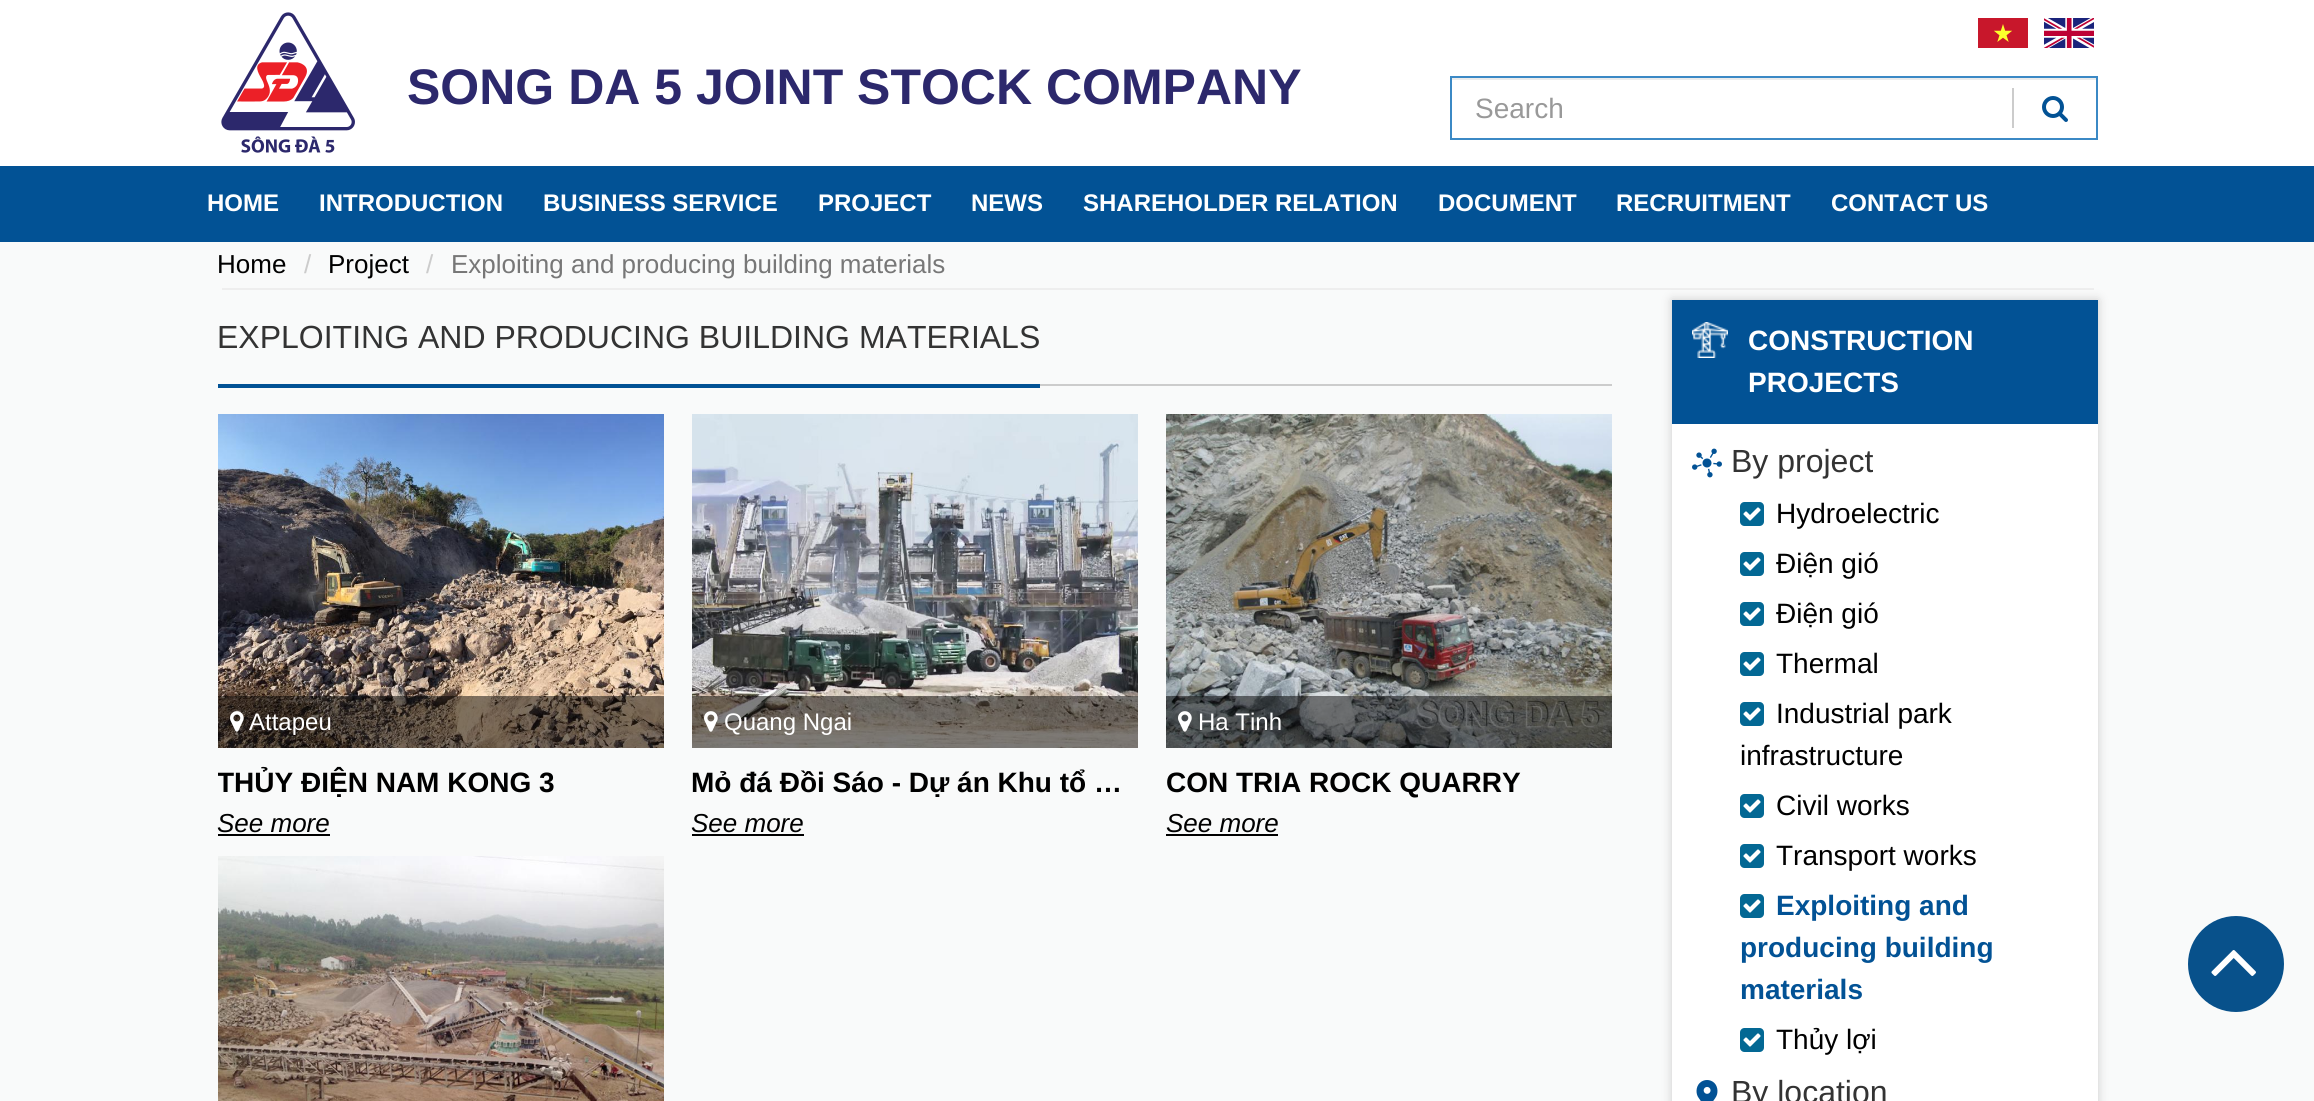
#include <cairo/cairo.h>
#include <math.h>
#include <stddef.h>

typedef struct { double x, y; const char *s; } line_t;
typedef struct { double x, y, w, h; unsigned color; } box_t;
static cairo_t *cr;

static void rgb(unsigned color)
{
	cairo_set_source_rgb(cr, (color >> 16) / 255.0, (color >> 8 & 255) / 255.0, (color & 255) / 255.0);
}

static void rrect(double x, double y, double w, double h, double r)
{
	cairo_new_sub_path(cr);
	cairo_arc(cr, x + w - r, y + h - r, r, 0, M_PI / 2);
	cairo_arc(cr, x + r, y + h - r, r, M_PI / 2, M_PI);
	cairo_arc(cr, x + r, y + r, r, M_PI, 1.5 * M_PI);
	cairo_arc(cr, x + w - r, y + r, r, 1.5 * M_PI, 2 * M_PI);
	cairo_close_path(cr);
}

static void soft_shadow(double x, double y, double w, double h, double r, double blur, double alpha)
{
	cairo_push_group_with_content(cr, CAIRO_CONTENT_ALPHA);
	cairo_set_operator(cr, CAIRO_OPERATOR_SOURCE);
	for (int i = 15; i >= -15 && fmin(w, h) + blur * i / 3 > 0; i -= 2) {
		double e = blur * i / 6;
		cairo_set_source_rgba(cr, 0, 0, 0, alpha * erfc((i - 1) / 8.5) / 2);
		rrect(x - e, y - e, w + 2 * e, h + 2 * e, fmax(0, fmin(r + e + blur * .6, fmin(w, h) / 2 + e)));
		cairo_fill(cr);
	}
	cairo_pattern_t *soft = cairo_pop_group(cr);
	cairo_mask(cr, soft);
	cairo_pattern_destroy(soft);
}

static void image(const char *path, double x, double y, double w, double h)
{
	cairo_surface_t *image = cairo_image_surface_create_from_png(path);
	cairo_save(cr);
	cairo_set_source_surface(cr, image, x, y);
	cairo_rectangle(cr, x, y, w, h);
	cairo_fill(cr);
	cairo_restore(cr);
	cairo_surface_destroy(image);
}

int main(void) {
	cairo_surface_t *surface = cairo_image_surface_create(CAIRO_FORMAT_RGB24, 2314, 1101);
	cr = cairo_create(surface);
	cairo_font_options_t *options = cairo_font_options_create();
	cairo_font_options_set_hint_metrics(options, CAIRO_HINT_METRICS_OFF);
	cairo_font_options_set_hint_style(options, CAIRO_HINT_STYLE_NONE);
	cairo_set_font_options(cr, options);
	cairo_set_miter_limit(cr, 4);
	rgb(0xffffff);
	cairo_paint(cr);
	image("img/1.png", 221, 12, 134, 141);
	image("img/2.png", 1978, 18, 50, 30);
	image("img/3.png", 2044, 18, 50, 30);
	rgb(0xececec);
	cairo_rectangle(cr, 1452, 78, 644, 2);
	cairo_fill(cr);
	cairo_rectangle(cr, 1451, 77, 646, 62);
	rgb(0x3b89c5);
	cairo_stroke(cr);
	rgb(0xcccccc);
	cairo_rectangle(cr, 2012, 88, 2, 40);
	cairo_fill(cr);
	image("img/4.png", 2042, 96, 26, 26);
	{
		static const box_t items[] = {
			{0, 166, 2314, 76, 0x025295},
			{0, 242, 2314, 859, 0xf9fafa},
			{222, 288, 1872, 2, 0xeeeeee},
			{1040, 384, 572, 2, 0xcccccc},
			{218, 384, 822, 4, 0x025295},
		};
		for (size_t i = 0; i < sizeof items / sizeof *items; i++) {
			rgb(items[i].color);
			cairo_rectangle(cr, items[i].x, items[i].y, items[i].w, items[i].h);
			cairo_fill(cr);
		}
	}
	image("img/5.png", 218, 414, 446, 334);
	cairo_set_source_rgba(cr, 0, 0, 0, 0.5);
	cairo_rectangle(cr, 218, 696, 446, 52);
	cairo_fill(cr);
	image("img/6.png", 230, 711, 14, 21);
	rgb(0x000000);
	cairo_rectangle(cr, 218, 834, 112, 2);
	cairo_fill(cr);
	image("img/7.png", 692, 414, 446, 334);
	cairo_set_source_rgba(cr, 0, 0, 0, 0.5);
	cairo_rectangle(cr, 692, 696, 446, 52);
	cairo_fill(cr);
	image("img/8.png", 704, 711, 14, 21);
	rgb(0x000000);
	cairo_rectangle(cr, 692, 834, 112, 2);
	cairo_fill(cr);
	image("img/9.png", 1166, 414, 446, 334);
	cairo_set_source_rgba(cr, 0, 0, 0, 0.5);
	cairo_rectangle(cr, 1166, 696, 446, 52);
	cairo_fill(cr);
	image("img/10.png", 1178, 711, 14, 21);
	rgb(0x000000);
	cairo_rectangle(cr, 1166, 834, 112, 2);
	cairo_fill(cr);
	image("img/11.png", 218, 856, 446, 245);
	rgb(0xcccccc);
	soft_shadow(1672, 300, 426, 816, 0, 5, 1);
	rgb(0xffffff);
	cairo_rectangle(cr, 1672, 424, 426, 677);
	cairo_fill(cr);
	rgb(0x025295);
	cairo_rectangle(cr, 1672, 300, 426, 124);
	cairo_fill(cr);
	image("img/12.png", 1692, 322, 36, 36);
	image("img/13.png", 1692, 448, 30, 30);
	image("img/14.png", 1740, 502, 24, 24);
	image("img/14.png", 1740, 552, 24, 24);
	image("img/14.png", 1740, 602, 24, 24);
	image("img/14.png", 1740, 652, 24, 24);
	image("img/14.png", 1740, 702, 24, 24);
	image("img/14.png", 1740, 794, 24, 24);
	image("img/14.png", 1740, 844, 24, 24);
	image("img/14.png", 1740, 894, 24, 24);
	image("img/14.png", 1740, 1028, 24, 24);
	image("img/15.png", 1696, 1080, 22, 21);
	rgb(0x08518b);
	cairo_arc(cr, 2236, 964, 48, 0, 2 * M_PI);
	cairo_fill(cr);
	image("img/16.png", 2211, 950, 45, 26);
	cairo_select_font_face(cr, "Liberation Sans", CAIRO_FONT_SLANT_NORMAL, CAIRO_FONT_WEIGHT_BOLD);
	cairo_set_font_size(cr, 50);
	rgb(0x2c286c);
	cairo_move_to(cr, 407, 104);
	cairo_show_text(cr, "SONG DA 5 JOINT STOCK COMPANY");
	cairo_select_font_face(cr, "Liberation Sans", CAIRO_FONT_SLANT_NORMAL, CAIRO_FONT_WEIGHT_NORMAL);
	cairo_set_font_size(cr, 28);
	rgb(0x999999);
	cairo_move_to(cr, 1475, 118);
	cairo_show_text(cr, "Search");
	cairo_select_font_face(cr, "Liberation Sans", CAIRO_FONT_SLANT_NORMAL, CAIRO_FONT_WEIGHT_BOLD);
	cairo_set_font_size(cr, 24);
	rgb(0xffffff);
	{
		static const line_t items[] = {
			{207, 211, "HOME"},
			{319, 211, "INTRODUCTION"},
			{543, 211, "BUSINESS SERVICE"},
			{818, 211, "PROJECT"},
			{971, 211, "NEWS"},
			{1083, 211, "SHAREHOLDER RELATION"},
			{1438, 211, "DOCUMENT"},
			{1616, 211, "RECRUITMENT"},
			{1831, 211, "CONTACT US"},
		};
		for (size_t i = 0; i < sizeof items / sizeof *items; i++) {
			cairo_move_to(cr, items[i].x, items[i].y);
			cairo_show_text(cr, items[i].s);
		}
	}
	cairo_select_font_face(cr, "Liberation Sans", CAIRO_FONT_SLANT_NORMAL, CAIRO_FONT_WEIGHT_NORMAL);
	cairo_set_font_size(cr, 26);
	rgb(0x000000);
	cairo_move_to(cr, 217, 273);
	cairo_show_text(cr, "Home");
	rgb(0xcccccc);
	cairo_move_to(cr, 304, 273);
	cairo_show_text(cr, "/");
	rgb(0x000000);
	cairo_move_to(cr, 328, 273);
	cairo_show_text(cr, "Project");
	rgb(0xcccccc);
	cairo_move_to(cr, 426, 273);
	cairo_show_text(cr, "/");
	rgb(0x777777);
	cairo_move_to(cr, 451, 273);
	cairo_show_text(cr, "Exploiting and producing building materials");
	cairo_set_font_size(cr, 32);
	rgb(0x333333);
	cairo_move_to(cr, 217, 348);
	cairo_show_text(cr, "EXPLOITING AND PRODUCING BUILDING MATERIALS");
	cairo_set_font_size(cr, 24);
	rgb(0xffffff);
	cairo_move_to(cr, 249, 730);
	cairo_show_text(cr, "Attapeu");
	cairo_save(cr);
	cairo_rectangle(cr, 218, 762, 336, 42);
	cairo_clip(cr);
	cairo_select_font_face(cr, "Liberation Sans", CAIRO_FONT_SLANT_NORMAL, CAIRO_FONT_WEIGHT_BOLD);
	cairo_set_font_size(cr, 28);
	rgb(0x000000);
	cairo_move_to(cr, 217, 792);
	cairo_show_text(cr, "THỦY ĐIỆN NAM KONG 3");
	cairo_restore(cr);
	cairo_select_font_face(cr, "Liberation Sans", CAIRO_FONT_SLANT_ITALIC, CAIRO_FONT_WEIGHT_NORMAL);
	cairo_set_font_size(cr, 26);
	rgb(0x000000);
	cairo_move_to(cr, 217, 832);
	cairo_show_text(cr, "See more");
	cairo_select_font_face(cr, "Liberation Sans", CAIRO_FONT_SLANT_NORMAL, CAIRO_FONT_WEIGHT_NORMAL);
	cairo_set_font_size(cr, 24);
	rgb(0xffffff);
	cairo_move_to(cr, 724, 730);
	cairo_show_text(cr, "Quang Ngai");
	cairo_select_font_face(cr, "Liberation Sans", CAIRO_FONT_SLANT_NORMAL, CAIRO_FONT_WEIGHT_BOLD);
	cairo_set_font_size(cr, 28);
	rgb(0x000000);
	cairo_move_to(cr, 691, 792);
	cairo_show_text(cr, "Mỏ đá Đồi Sáo - Dự án Khu tổ …");
	cairo_select_font_face(cr, "Liberation Sans", CAIRO_FONT_SLANT_ITALIC, CAIRO_FONT_WEIGHT_NORMAL);
	cairo_set_font_size(cr, 26);
	cairo_move_to(cr, 691, 832);
	cairo_show_text(cr, "See more");
	cairo_select_font_face(cr, "Liberation Sans", CAIRO_FONT_SLANT_NORMAL, CAIRO_FONT_WEIGHT_NORMAL);
	cairo_set_font_size(cr, 24);
	rgb(0xffffff);
	cairo_move_to(cr, 1198, 730);
	cairo_show_text(cr, "Ha Tinh");
	cairo_select_font_face(cr, "Liberation Sans", CAIRO_FONT_SLANT_NORMAL, CAIRO_FONT_WEIGHT_BOLD);
	cairo_set_font_size(cr, 28);
	rgb(0x000000);
	cairo_move_to(cr, 1166, 792);
	cairo_show_text(cr, "CON TRIA ROCK QUARRY");
	cairo_select_font_face(cr, "Liberation Sans", CAIRO_FONT_SLANT_ITALIC, CAIRO_FONT_WEIGHT_NORMAL);
	cairo_set_font_size(cr, 26);
	cairo_move_to(cr, 1166, 832);
	cairo_show_text(cr, "See more");
	cairo_select_font_face(cr, "Liberation Sans", CAIRO_FONT_SLANT_NORMAL, CAIRO_FONT_WEIGHT_BOLD);
	cairo_set_font_size(cr, 28);
	rgb(0xffffff);
	cairo_move_to(cr, 1748, 350);
	cairo_show_text(cr, "CONSTRUCTION");
	cairo_move_to(cr, 1748, 392);
	cairo_show_text(cr, "PROJECTS");
	cairo_select_font_face(cr, "Liberation Sans", CAIRO_FONT_SLANT_NORMAL, CAIRO_FONT_WEIGHT_NORMAL);
	cairo_set_font_size(cr, 32);
	rgb(0x333333);
	cairo_move_to(cr, 1731, 472);
	cairo_show_text(cr, "By project");
	cairo_set_font_size(cr, 28);
	rgb(0x000000);
	{
		static const line_t items[] = {
			{1776, 523, "Hydroelectric"},
			{1776, 573, "Điện gió"},
			{1776, 623, "Điện gió"},
			{1776, 673, "Thermal"},
			{1776, 723, "Industrial park"},
			{1740, 765, "infrastructure"},
			{1776, 815, "Civil works"},
			{1776, 865, "Transport works"},
		};
		for (size_t i = 0; i < sizeof items / sizeof *items; i++) {
			cairo_move_to(cr, items[i].x, items[i].y);
			cairo_show_text(cr, items[i].s);
		}
	}
	cairo_select_font_face(cr, "Liberation Sans", CAIRO_FONT_SLANT_NORMAL, CAIRO_FONT_WEIGHT_BOLD);
	rgb(0x025295);
	{
		static const line_t items[] = {
			{1776, 915, "Exploiting and"},
			{1740, 957, "producing building"},
			{1740, 999, "materials"},
		};
		for (size_t i = 0; i < sizeof items / sizeof *items; i++) {
			cairo_move_to(cr, items[i].x, items[i].y);
			cairo_show_text(cr, items[i].s);
		}
	}
	cairo_select_font_face(cr, "Liberation Sans", CAIRO_FONT_SLANT_NORMAL, CAIRO_FONT_WEIGHT_NORMAL);
	rgb(0x000000);
	cairo_move_to(cr, 1776, 1049);
	cairo_show_text(cr, "Thủy lợi");
	cairo_set_font_size(cr, 32);
	rgb(0x333333);
	cairo_move_to(cr, 1731, 1103);
	cairo_show_text(cr, "By location");
	cairo_surface_write_to_png(surface, "page.png");
	cairo_font_options_destroy(options);
	cairo_destroy(cr);
	cairo_surface_destroy(surface);
	return 0;
}
